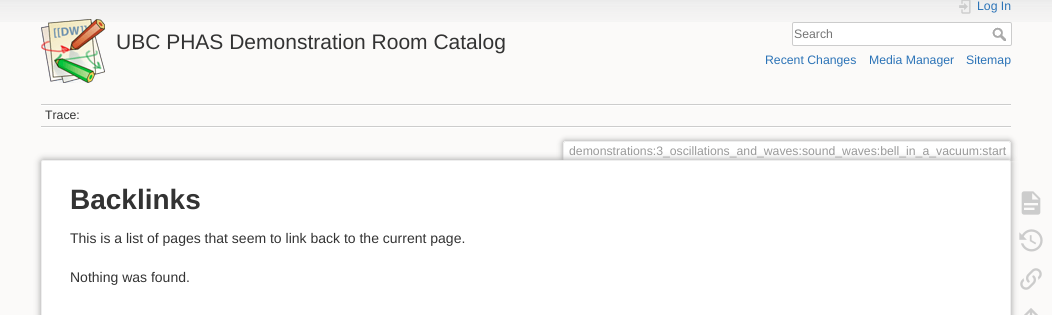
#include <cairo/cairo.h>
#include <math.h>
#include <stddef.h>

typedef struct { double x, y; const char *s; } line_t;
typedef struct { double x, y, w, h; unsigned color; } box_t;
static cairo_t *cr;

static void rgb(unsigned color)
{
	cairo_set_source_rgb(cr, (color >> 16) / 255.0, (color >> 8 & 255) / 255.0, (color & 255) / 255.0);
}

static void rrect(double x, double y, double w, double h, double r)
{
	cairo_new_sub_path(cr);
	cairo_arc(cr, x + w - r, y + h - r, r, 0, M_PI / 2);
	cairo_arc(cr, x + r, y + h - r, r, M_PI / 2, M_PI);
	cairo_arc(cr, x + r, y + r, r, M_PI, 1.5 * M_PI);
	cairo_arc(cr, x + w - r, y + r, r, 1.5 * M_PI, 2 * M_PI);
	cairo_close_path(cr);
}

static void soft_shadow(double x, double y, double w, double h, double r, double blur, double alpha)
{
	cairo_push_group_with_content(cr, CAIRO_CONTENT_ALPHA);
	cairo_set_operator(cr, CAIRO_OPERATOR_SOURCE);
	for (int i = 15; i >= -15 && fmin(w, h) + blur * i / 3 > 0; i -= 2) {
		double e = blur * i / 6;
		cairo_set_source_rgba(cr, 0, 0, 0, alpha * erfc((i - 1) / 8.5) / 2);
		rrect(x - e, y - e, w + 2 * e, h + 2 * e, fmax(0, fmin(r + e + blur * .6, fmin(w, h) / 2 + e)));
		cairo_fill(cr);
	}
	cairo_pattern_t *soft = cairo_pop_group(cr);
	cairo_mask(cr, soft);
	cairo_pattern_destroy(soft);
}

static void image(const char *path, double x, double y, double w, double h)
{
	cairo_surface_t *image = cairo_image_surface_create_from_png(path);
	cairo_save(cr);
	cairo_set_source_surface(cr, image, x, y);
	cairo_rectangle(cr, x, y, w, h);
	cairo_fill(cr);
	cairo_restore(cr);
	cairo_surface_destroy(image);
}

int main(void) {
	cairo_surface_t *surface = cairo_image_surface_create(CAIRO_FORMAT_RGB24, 1052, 315);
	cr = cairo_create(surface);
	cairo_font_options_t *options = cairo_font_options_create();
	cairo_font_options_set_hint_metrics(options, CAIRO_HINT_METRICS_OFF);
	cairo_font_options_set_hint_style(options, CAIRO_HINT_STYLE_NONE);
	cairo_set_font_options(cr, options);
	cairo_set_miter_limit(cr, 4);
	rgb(0xfbfaf9);
	cairo_paint(cr);
	image("img/1.png", 0, 0, 1052, 22);
	image("img/2.png", 41, 19, 64, 64);
	image("img/3.png", 959, 0, 12, 14);
	rgb(0xffffff);
	rrect(792.5, 22.5, 219, 23, 1.5);
	cairo_fill_preserve(cr);
	rgb(0xcccccc);
	cairo_set_line_width(cr, 1);
	cairo_stroke(cr);
	image("img/4.png", 992, 27, 14, 14);
	{
		static const box_t items[] = {
			{41, 104, 970, 1, 0xcccccc},
			{41, 127, 970, 1, 0xffffff},
			{41, 105, 970, 1, 0xffffff},
			{41, 126, 970, 1, 0xcccccc},
		};
		for (size_t i = 0; i < sizeof items / sizeof *items; i++) {
			rgb(items[i].color);
			cairo_rectangle(cr, items[i].x, items[i].y, items[i].w, items[i].h);
			cairo_fill(cr);
		}
	}
	cairo_save(cr);
	cairo_rectangle(cr, 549, 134, 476, 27);
	cairo_clip(cr);
	rgb(0x999999);
	soft_shadow(563, 141, 448, 20, 2, 3, 1);
	cairo_restore(cr);
	rgb(0xffffff);
	cairo_new_path(cr);
	cairo_move_to(cr, 565, 142);
	cairo_line_to(cr, 1009, 142);
	cairo_curve_to(cr, 1009.5, 142, 1010, 142.5, 1010, 143);
	cairo_line_to(cr, 1010, 161);
	cairo_line_to(cr, 564, 161);
	cairo_line_to(cr, 564, 143);
	cairo_curve_to(cr, 564, 142.5, 564.5, 142, 565, 142);
	cairo_close_path(cr);
	cairo_fill(cr);
	{
		static const box_t items[] = {
			{564, 141, 446, 1, 0xeeeeee},
			{1010, 142, 1, 19, 0xeeeeee},
			{563, 142, 1, 19, 0xeeeeee},
		};
		for (size_t i = 0; i < sizeof items / sizeof *items; i++) {
			rgb(items[i].color);
			cairo_rectangle(cr, items[i].x, items[i].y, items[i].w, items[i].h);
			cairo_fill(cr);
		}
	}
	rgb(0x999999);
	soft_shadow(41, 160, 970, 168, 2, 3.5, 1);
	rgb(0xffffff);
	rrect(41.5, 160.5, 969, 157, 1.5);
	cairo_fill_preserve(cr);
	rgb(0xeeeeee);
	cairo_stroke(cr);
	image("img/5.png", 1021, 191, 20, 24);
	image("img/6.png", 1019, 229, 24, 23);
	image("img/7.png", 1020, 268, 22, 22);
	image("img/8.png", 1024, 308, 14, 7);
	cairo_select_font_face(cr, "Liberation Sans", CAIRO_FONT_SLANT_NORMAL, CAIRO_FONT_WEIGHT_NORMAL);
	cairo_set_font_size(cr, 21);
	rgb(0x333333);
	cairo_move_to(cr, 116, 49);
	cairo_show_text(cr, "UBC PHAS Demonstration Room Catalog");
	cairo_set_font_size(cr, 12.25);
	rgb(0x2b73b7);
	cairo_move_to(cr, 977, 10);
	cairo_show_text(cr, "Log In");
	rgb(0x757575);
	cairo_move_to(cr, 794, 38);
	cairo_show_text(cr, "Search");
	rgb(0x2b73b7);
	{
		static const line_t items[] = {
			{765, 64, "Recent Changes"},
			{869, 64, "Media Manager"},
			{966, 64, "Sitemap"},
		};
		for (size_t i = 0; i < sizeof items / sizeof *items; i++) {
			cairo_move_to(cr, items[i].x, items[i].y);
			cairo_show_text(cr, items[i].s);
		}
	}
	rgb(0x333333);
	cairo_move_to(cr, 45, 119);
	cairo_show_text(cr, "Trace:");
	rgb(0x999999);
	cairo_move_to(cr, 569, 155);
	cairo_show_text(cr, "demonstrations:3_oscillations_and_waves:sound_waves:bell_in_a_vacuum:start");
	cairo_select_font_face(cr, "Liberation Sans", CAIRO_FONT_SLANT_NORMAL, CAIRO_FONT_WEIGHT_BOLD);
	cairo_set_font_size(cr, 28);
	rgb(0x333333);
	cairo_move_to(cr, 70, 209);
	cairo_show_text(cr, "Backlinks");
	cairo_select_font_face(cr, "Liberation Sans", CAIRO_FONT_SLANT_NORMAL, CAIRO_FONT_WEIGHT_NORMAL);
	cairo_set_font_size(cr, 14);
	cairo_move_to(cr, 70, 243);
	cairo_show_text(cr, "This is a list of pages that seem to link back to the current page.");
	cairo_move_to(cr, 70, 282);
	cairo_show_text(cr, "Nothing was found.");
	cairo_surface_write_to_png(surface, "page.png");
	cairo_font_options_destroy(options);
	cairo_destroy(cr);
	cairo_surface_destroy(surface);
	return 0;
}
